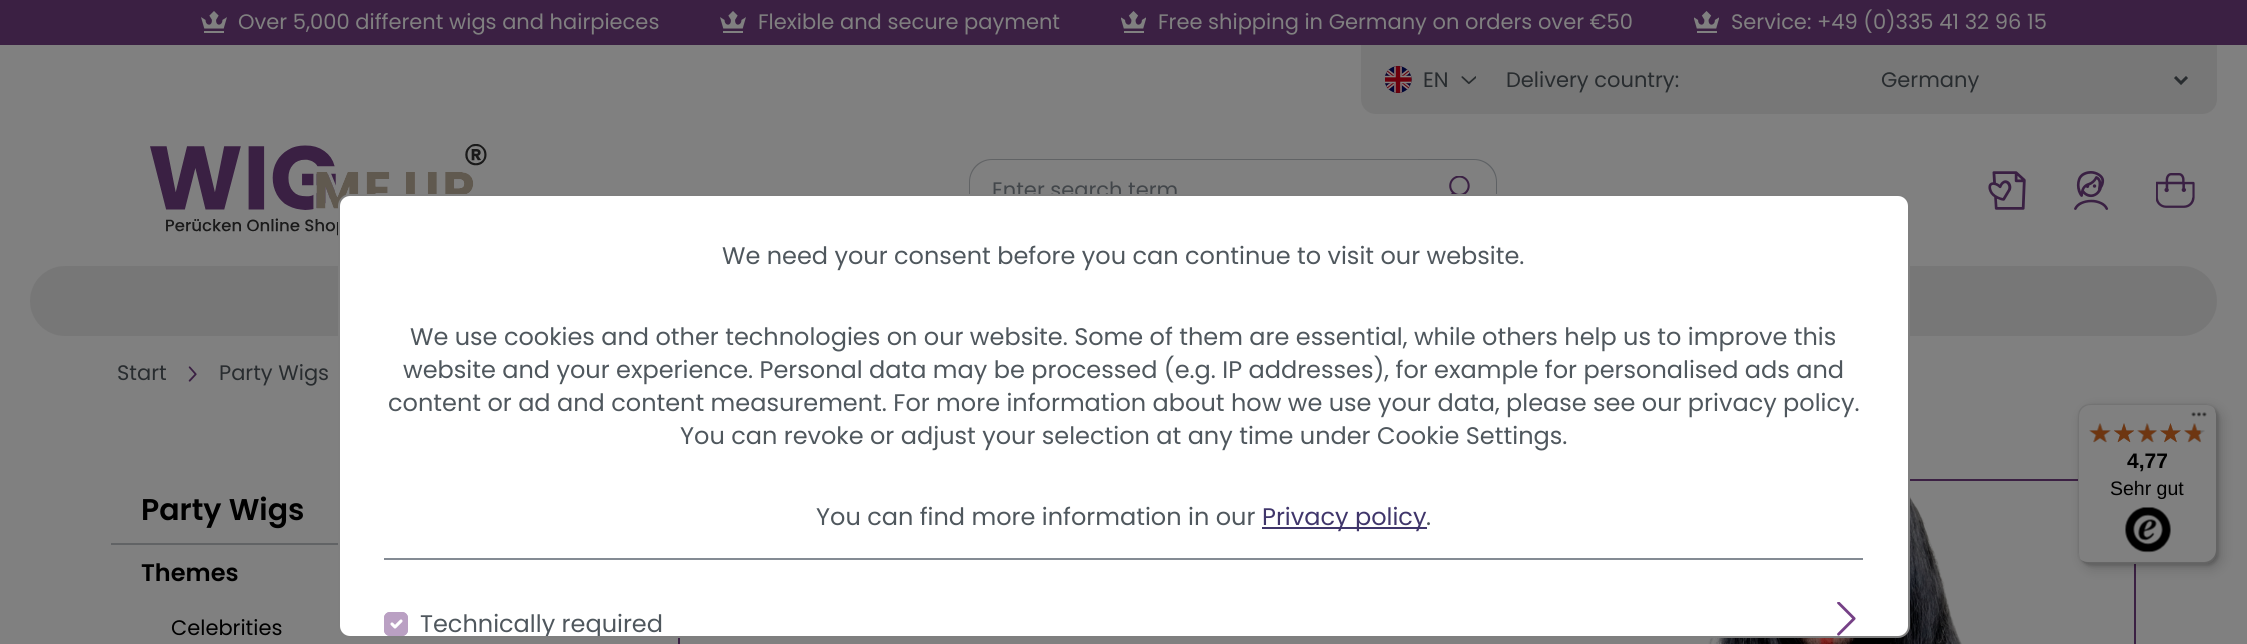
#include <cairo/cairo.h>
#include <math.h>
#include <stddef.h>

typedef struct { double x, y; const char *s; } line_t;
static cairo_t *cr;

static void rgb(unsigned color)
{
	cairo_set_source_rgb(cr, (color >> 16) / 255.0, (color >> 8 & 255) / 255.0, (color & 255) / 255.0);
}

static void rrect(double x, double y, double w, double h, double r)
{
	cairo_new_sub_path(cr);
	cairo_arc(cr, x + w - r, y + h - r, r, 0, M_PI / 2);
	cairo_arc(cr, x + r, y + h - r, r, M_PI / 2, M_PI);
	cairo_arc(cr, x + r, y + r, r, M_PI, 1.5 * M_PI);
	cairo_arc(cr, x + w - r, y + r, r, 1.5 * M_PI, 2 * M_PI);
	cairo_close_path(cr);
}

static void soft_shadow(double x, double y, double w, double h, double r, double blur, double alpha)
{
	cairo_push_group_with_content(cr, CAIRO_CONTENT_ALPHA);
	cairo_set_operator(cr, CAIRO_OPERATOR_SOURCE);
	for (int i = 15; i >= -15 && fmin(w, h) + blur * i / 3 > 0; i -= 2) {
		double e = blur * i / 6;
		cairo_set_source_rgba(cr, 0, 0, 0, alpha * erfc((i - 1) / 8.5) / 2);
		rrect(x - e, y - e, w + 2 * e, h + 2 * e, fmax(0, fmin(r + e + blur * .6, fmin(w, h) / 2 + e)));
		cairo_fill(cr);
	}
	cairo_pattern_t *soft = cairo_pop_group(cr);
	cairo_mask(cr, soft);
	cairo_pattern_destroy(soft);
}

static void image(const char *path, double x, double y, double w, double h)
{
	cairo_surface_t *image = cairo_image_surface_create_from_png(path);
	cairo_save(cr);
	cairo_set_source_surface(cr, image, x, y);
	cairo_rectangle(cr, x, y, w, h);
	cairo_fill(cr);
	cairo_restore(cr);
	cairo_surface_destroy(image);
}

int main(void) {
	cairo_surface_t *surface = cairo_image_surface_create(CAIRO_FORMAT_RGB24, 2247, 644);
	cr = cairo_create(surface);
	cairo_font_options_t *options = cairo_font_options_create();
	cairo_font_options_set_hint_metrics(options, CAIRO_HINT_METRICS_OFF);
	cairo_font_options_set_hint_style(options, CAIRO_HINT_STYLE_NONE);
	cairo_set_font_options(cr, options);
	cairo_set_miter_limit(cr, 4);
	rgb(0x808080);
	cairo_paint(cr);
	rgb(0x3b2043);
	cairo_rectangle(cr, 0, 0, 2247, 45);
	cairo_fill(cr);
	image("img/1.png", 201, 11, 26, 22);
	image("img/1.png", 720, 11, 26, 22);
	image("img/2.png", 1121, 11, 25, 22);
	image("img/2.png", 1694, 11, 25, 22);
	rgb(0x777777);
	cairo_new_path(cr);
	cairo_move_to(cr, 1361, 45);
	cairo_line_to(cr, 2217, 45);
	cairo_line_to(cr, 2217, 99);
	cairo_curve_to(cr, 2217, 107.5, 2210.5, 114, 2202, 114);
	cairo_line_to(cr, 1376, 114);
	cairo_curve_to(cr, 1367.5, 114, 1361, 107.5, 1361, 99);
	cairo_close_path(cr);
	cairo_fill(cr);
	image("img/3.png", 1385, 66, 27, 27);
	image("img/4.png", 1461, 76, 15, 9);
	cairo_new_path(cr);
	cairo_move_to(cr, 2175, 77);
	cairo_line_to(cr, 2181, 83);
	cairo_line_to(cr, 2187, 77);
	rgb(0x282c2f);
	cairo_set_line_width(cr, 3);
	cairo_stroke(cr);
	image("img/5.png", 150, 144, 337, 92);
	rgb(0x616365);
	cairo_set_fill_rule(cr, CAIRO_FILL_RULE_EVEN_ODD);
	cairo_new_path(cr);
	cairo_move_to(cr, 992, 159);
	cairo_line_to(cr, 1419, 159);
	cairo_line_to(cr, 1419, 220);
	cairo_line_to(cr, 992, 220);
	cairo_curve_to(cr, 979, 220, 969, 210, 969, 198);
	cairo_line_to(cr, 969, 182);
	cairo_curve_to(cr, 969, 169, 979, 159, 992, 159);
	cairo_close_path(cr);
	cairo_move_to(cr, 992, 160);
	cairo_line_to(cr, 1419, 160);
	cairo_line_to(cr, 1419, 219);
	cairo_line_to(cr, 992, 219);
	cairo_curve_to(cr, 980, 219, 970, 210, 970, 198);
	cairo_line_to(cr, 970, 182);
	cairo_curve_to(cr, 970, 170, 980, 160, 992, 160);
	cairo_close_path(cr);
	cairo_fill(cr);
	rgb(0x5e6164);
	cairo_new_path(cr);
	cairo_move_to(cr, 1418, 159);
	cairo_line_to(cr, 1474, 159);
	cairo_curve_to(cr, 1487, 159, 1497, 169, 1497, 182);
	cairo_line_to(cr, 1497, 198);
	cairo_curve_to(cr, 1497, 210, 1487, 220, 1474, 220);
	cairo_line_to(cr, 1418, 220);
	cairo_close_path(cr);
	cairo_move_to(cr, 1418, 160);
	cairo_line_to(cr, 1474, 160);
	cairo_curve_to(cr, 1486, 160, 1496, 170, 1496, 182);
	cairo_line_to(cr, 1496, 198);
	cairo_curve_to(cr, 1496, 210, 1486, 219, 1474, 219);
	cairo_line_to(cr, 1418, 219);
	cairo_close_path(cr);
	cairo_fill(cr);
	image("img/6.png", 1449, 176, 21, 18);
	image("img/7.png", 1988, 171, 38, 39);
	image("img/8.png", 2074, 171, 35, 39);
	image("img/9.png", 2156, 173, 39, 35);
	rgb(0x777777);
	rrect(30, 266, 2187, 70, 35);
	cairo_fill(cr);
	image("img/11.png", 188, 366, 9, 16);
	rgb(0x616365);
	cairo_rectangle(cr, 111, 543, 227, 2);
	cairo_fill(cr);
	cairo_rectangle(cr, 679, 480, 1456, 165);
	rgb(0x3b2043);
	cairo_set_line_width(cr, 2);
	cairo_stroke(cr);
	image("img/12.png", 1708, 496, 254, 148);
	rgb(0x000000);
	soft_shadow(2082, 408, 140, 161, 12, 6, 0.15);
	soft_shadow(2079, 405, 140, 161, 12, 1.5, 0.15);
	rgb(0x808080);
	rrect(2078, 404, 139, 160, 12);
	cairo_fill(cr);
	rgb(0x737373);
	cairo_set_fill_rule(cr, CAIRO_FILL_RULE_WINDING);
	cairo_new_path(cr);
	cairo_move_to(cr, 2091, 405);
	cairo_line_to(cr, 2206, 405);
	cairo_curve_to(cr, 2209, 405, 2211, 406, 2213, 407);
	cairo_curve_to(cr, 2211, 405, 2208, 404, 2205, 404);
	cairo_line_to(cr, 2090, 404);
	cairo_curve_to(cr, 2083, 404, 2078, 409, 2078, 416);
	cairo_line_to(cr, 2078, 552);
	cairo_curve_to(cr, 2078, 554, 2079, 557, 2080, 559);
	cairo_line_to(cr, 2079, 554);
	cairo_line_to(cr, 2079, 417);
	cairo_curve_to(cr, 2079, 410, 2084, 405, 2091, 405);
	cairo_close_path(cr);
	cairo_fill(cr);
	cairo_set_source_rgba(cr, 0, 0, 0, 0.2);
	cairo_new_path(cr);
	cairo_move_to(cr, 2081, 560);
	cairo_curve_to(cr, 2083, 562, 2086, 564, 2090, 564);
	cairo_line_to(cr, 2205, 564);
	cairo_curve_to(cr, 2212, 564, 2217, 559, 2217, 552);
	cairo_line_to(cr, 2217, 416);
	cairo_curve_to(cr, 2217, 414, 2216, 411, 2215, 410);
	cairo_line_to(cr, 2216, 414);
	cairo_line_to(cr, 2216, 550);
	cairo_curve_to(cr, 2216, 557, 2210, 562, 2204, 562);
	cairo_line_to(cr, 2088, 562);
	cairo_curve_to(cr, 2085, 562, 2083, 561, 2081, 560);
	cairo_close_path(cr);
	cairo_fill(cr);
	cairo_set_source_rgba(cr, 0.098, 0.098, 0.098, 0.2);
	cairo_new_path(cr);
	cairo_move_to(cr, 2082, 561);
	cairo_curve_to(cr, 2084, 563, 2087, 564, 2090, 564);
	cairo_line_to(cr, 2205, 564);
	cairo_curve_to(cr, 2212, 564, 2217, 559, 2217, 552);
	cairo_line_to(cr, 2217, 416);
	cairo_curve_to(cr, 2217, 413, 2216, 410, 2214, 408);
	cairo_curve_to(cr, 2215, 410, 2216, 412, 2216, 415);
	cairo_line_to(cr, 2216, 551);
	cairo_curve_to(cr, 2216, 558, 2211, 563, 2204, 563);
	cairo_line_to(cr, 2089, 563);
	cairo_curve_to(cr, 2086, 563, 2084, 562, 2082, 561);
	cairo_close_path(cr);
	cairo_fill(cr);
	cairo_set_source_rgba(cr, 0.502, 0.502, 0.502, 0.3);
	cairo_new_path(cr);
	cairo_move_to(cr, 2082, 561);
	cairo_curve_to(cr, 2084, 563, 2087, 564, 2090, 564);
	cairo_line_to(cr, 2205, 564);
	cairo_curve_to(cr, 2212, 564, 2217, 559, 2217, 552);
	cairo_line_to(cr, 2217, 416);
	cairo_curve_to(cr, 2217, 413, 2216, 410, 2214, 408);
	cairo_curve_to(cr, 2215, 410, 2216, 412, 2216, 415);
	cairo_line_to(cr, 2216, 551);
	cairo_curve_to(cr, 2216, 558, 2211, 563, 2204, 563);
	cairo_line_to(cr, 2089, 563);
	cairo_curve_to(cr, 2086, 563, 2084, 562, 2082, 561);
	cairo_close_path(cr);
	cairo_fill(cr);
	image("img/13.png", 2191, 412, 16, 5);
	image("img/14.png", 2089, 423, 22, 20);
	image("img/15.png", 2114, 423, 20, 19);
	image("img/16.png", 2137, 423, 20, 20);
	image("img/17.png", 2160, 423, 21, 19);
	image("img/18.png", 2184, 423, 21, 20);
	image("img/19.png", 2089, 423, 22, 19);
	image("img/20.png", 2114, 423, 20, 20);
	image("img/21.png", 2137, 423, 20, 19);
	image("img/22.png", 2160, 423, 21, 20);
	image("img/23.png", 2184, 423, 17, 19);
	image("img/24.png", 2125, 507, 46, 46);
	cairo_select_font_face(cr, "Poppins", CAIRO_FONT_SLANT_NORMAL, CAIRO_FONT_WEIGHT_NORMAL);
	cairo_set_font_size(cr, 21);
	rgb(0x808080);
	{
		static const line_t items[] = {
			{238, 29, "Over 5,000 different wigs and hairpieces"},
			{758, 29, "Flexible and secure payment"},
			{1158, 29, "Free shipping in Germany on orders over €50"},
			{1731, 29, "Service: +49 (0)335 41 32 96 15"},
		};
		for (size_t i = 0; i < sizeof items / sizeof *items; i++) {
			cairo_move_to(cr, items[i].x, items[i].y);
			cairo_show_text(cr, items[i].s);
		}
	}
	rgb(0x282c2f);
	{
		static const line_t items[] = {
			{1423, 87, "EN"},
			{1506, 87, "Delivery country:"},
			{1881, 87, "Germany"},
		};
		for (size_t i = 0; i < sizeof items / sizeof *items; i++) {
			cairo_move_to(cr, items[i].x, items[i].y);
			cairo_show_text(cr, items[i].s);
		}
	}
	rgb(0x42464a);
	cairo_move_to(cr, 992, 197);
	cairo_show_text(cr, "Enter search term");
	rgb(0xffffff);
	rrect(339, 195, 1570, 442, 11);
	cairo_fill_preserve(cr);
	rgb(0x7f7f7f);
	cairo_stroke(cr);
	rgb(0x848b94);
	cairo_rectangle(cr, 384, 558, 1479, 2);
	cairo_fill(cr);
	cairo_set_font_size(cr, 24);
	rgb(0x4f575d);
	{
		static const line_t items[] = {
			{722, 264, "We need your consent before you can continue to visit our website."},
			{410, 345, "We use cookies and other technologies on our website. Some of them are essential, while others help us to improve this"},
			{403, 378, "website and your experience. Personal data may be processed (e.g. IP addresses), for example for personalised ads and"},
			{388, 411, "content or ad and content measurement. For more information about how we use your data, please see our privacy policy."},
			{680, 444, "You can revoke or adjust your selection at any time under Cookie Settings."},
			{816, 525, "You can find more information in our"},
		};
		for (size_t i = 0; i < sizeof items / sizeof *items; i++) {
			cairo_move_to(cr, items[i].x, items[i].y);
			cairo_show_text(cr, items[i].s);
		}
	}
	rgb(0x40366b);
	cairo_rectangle(cr, 1262, 527, 165, 2);
	cairo_fill(cr);
	cairo_move_to(cr, 1262, 525);
	cairo_show_text(cr, "Privacy policy");
	rgb(0x4f575d);
	cairo_move_to(cr, 1426, 525);
	cairo_show_text(cr, ".");
	rgb(0xbaa0c3);
	rrect(384, 612, 24, 24, 6);
	cairo_fill(cr);
	cairo_new_path(cr);
	cairo_move_to(cr, 392, 624);
	cairo_line_to(cr, 395, 627);
	cairo_line_to(cr, 401, 621);
	rgb(0xffffff);
	cairo_set_line_width(cr, 3.1);
	cairo_set_line_cap(cr, CAIRO_LINE_CAP_ROUND);
	cairo_set_line_join(cr, CAIRO_LINE_JOIN_ROUND);
	cairo_stroke(cr);
	rrect(385, 613, 22, 22, 5);
	rgb(0xbaa0c3);
	cairo_set_line_width(cr, 2);
	cairo_set_line_cap(cr, CAIRO_LINE_CAP_BUTT);
	cairo_set_line_join(cr, CAIRO_LINE_JOIN_MITER);
	cairo_stroke(cr);
	cairo_save(cr);
	rrect(339, 195, 1569, 441, 11);
	cairo_clip(cr);
	rgb(0x4f575d);
	cairo_move_to(cr, 420, 632);
	cairo_show_text(cr, "Technically required");
	cairo_restore(cr);
	image("img/10.png", 1837, 602, 19, 34);
	cairo_set_font_size(cr, 21);
	rgb(0x282c2f);
	cairo_move_to(cr, 117, 380);
	cairo_show_text(cr, "Start");
	cairo_move_to(cr, 219, 380);
	cairo_show_text(cr, "Party Wigs");
	cairo_select_font_face(cr, "Poppins SemiBold", CAIRO_FONT_SLANT_NORMAL, CAIRO_FONT_WEIGHT_NORMAL);
	cairo_set_font_size(cr, 30);
	rgb(0x000000);
	cairo_move_to(cr, 141, 520);
	cairo_show_text(cr, "Party Wigs");
	cairo_set_font_size(cr, 24);
	cairo_move_to(cr, 141, 581);
	cairo_show_text(cr, "Themes");
	cairo_select_font_face(cr, "Poppins", CAIRO_FONT_SLANT_NORMAL, CAIRO_FONT_WEIGHT_NORMAL);
	cairo_set_font_size(cr, 21);
	cairo_move_to(cr, 171, 635);
	cairo_show_text(cr, "Celebrities");
	cairo_select_font_face(cr, "Liberation Sans", CAIRO_FONT_SLANT_NORMAL, CAIRO_FONT_WEIGHT_BOLD);
	cairo_move_to(cr, 2127, 468);
	cairo_show_text(cr, "4,77");
	cairo_select_font_face(cr, "Liberation Sans", CAIRO_FONT_SLANT_NORMAL, CAIRO_FONT_WEIGHT_NORMAL);
	cairo_set_font_size(cr, 19.5);
	cairo_move_to(cr, 2110, 495);
	cairo_show_text(cr, "Sehr gut");
	cairo_surface_write_to_png(surface, "page.png");
	cairo_font_options_destroy(options);
	cairo_destroy(cr);
	cairo_surface_destroy(surface);
	return 0;
}
